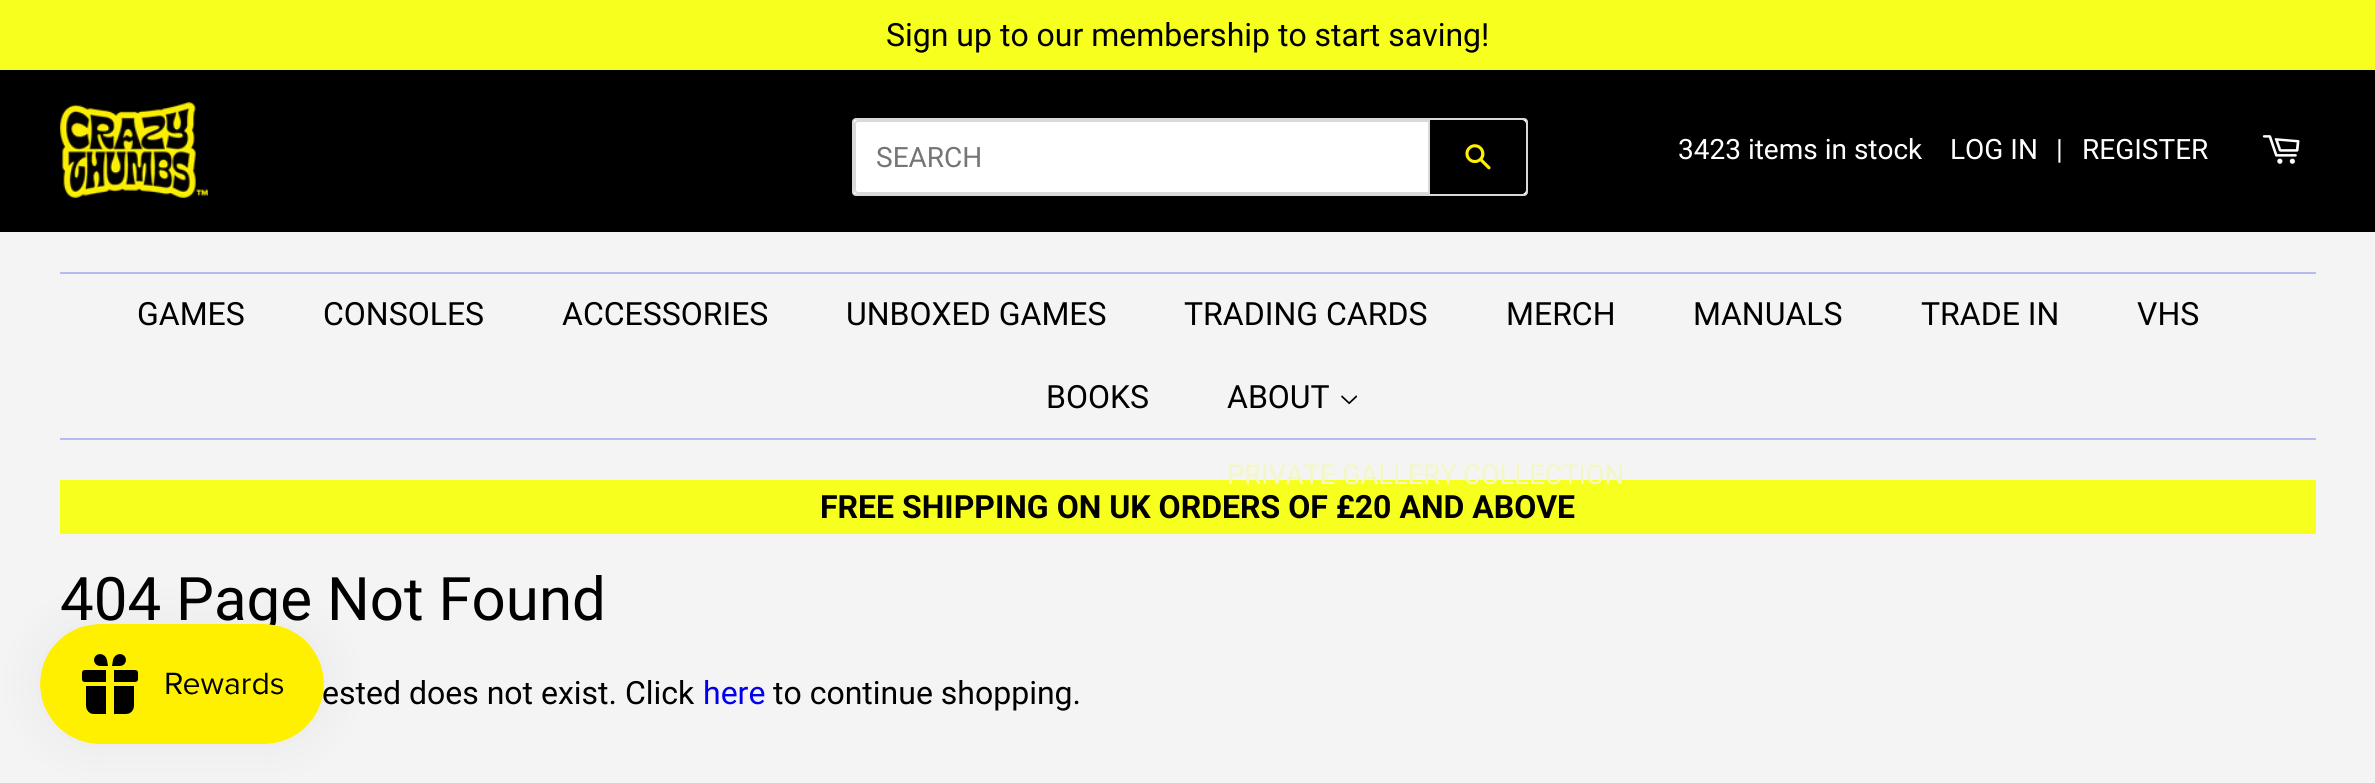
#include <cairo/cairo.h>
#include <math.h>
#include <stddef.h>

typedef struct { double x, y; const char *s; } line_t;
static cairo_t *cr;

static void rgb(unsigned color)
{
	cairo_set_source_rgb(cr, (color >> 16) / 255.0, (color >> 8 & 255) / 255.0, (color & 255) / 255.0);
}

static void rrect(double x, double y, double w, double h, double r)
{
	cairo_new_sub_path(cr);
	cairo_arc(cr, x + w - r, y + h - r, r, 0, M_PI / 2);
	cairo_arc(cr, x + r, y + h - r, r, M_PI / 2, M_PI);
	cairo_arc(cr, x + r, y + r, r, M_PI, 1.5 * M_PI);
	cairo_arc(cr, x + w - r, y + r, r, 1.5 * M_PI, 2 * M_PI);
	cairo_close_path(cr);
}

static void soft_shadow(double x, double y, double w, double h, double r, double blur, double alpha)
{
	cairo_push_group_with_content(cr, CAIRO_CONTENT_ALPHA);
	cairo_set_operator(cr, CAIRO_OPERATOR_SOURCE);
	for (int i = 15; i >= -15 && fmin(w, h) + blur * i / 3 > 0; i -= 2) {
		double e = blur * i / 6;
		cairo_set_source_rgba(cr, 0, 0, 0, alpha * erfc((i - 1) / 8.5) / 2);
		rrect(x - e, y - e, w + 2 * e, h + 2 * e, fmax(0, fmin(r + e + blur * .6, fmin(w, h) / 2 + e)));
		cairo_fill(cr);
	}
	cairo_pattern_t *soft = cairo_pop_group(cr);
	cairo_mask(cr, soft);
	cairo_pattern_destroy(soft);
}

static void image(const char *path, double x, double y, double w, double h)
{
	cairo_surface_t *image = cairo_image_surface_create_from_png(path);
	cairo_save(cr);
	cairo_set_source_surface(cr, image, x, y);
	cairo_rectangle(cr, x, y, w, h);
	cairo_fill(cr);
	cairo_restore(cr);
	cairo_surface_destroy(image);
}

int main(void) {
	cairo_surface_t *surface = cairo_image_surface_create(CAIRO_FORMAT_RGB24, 2375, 783);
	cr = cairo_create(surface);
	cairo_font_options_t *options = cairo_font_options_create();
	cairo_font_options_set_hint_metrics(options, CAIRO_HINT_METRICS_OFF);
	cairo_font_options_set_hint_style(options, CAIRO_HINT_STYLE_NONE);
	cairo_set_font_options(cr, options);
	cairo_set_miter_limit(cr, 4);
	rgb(0xf4f4f4);
	cairo_paint(cr);
	rgb(0xf7ff1e);
	cairo_rectangle(cr, 0, 0, 2375, 70);
	cairo_fill(cr);
	rgb(0x000000);
	cairo_rectangle(cr, 0, 70, 2375, 162);
	cairo_fill(cr);
	image("img/1.png", 60, 102, 148, 96);
	rgb(0xffffff);
	rrect(852, 118, 676, 78, 4);
	cairo_fill(cr);
	cairo_rectangle(cr, 853, 119, 674, 76);
	cairo_set_source_rgba(cr, 0, 0, 0, 0.15);
	cairo_stroke(cr);
	cairo_new_path(cr);
	cairo_move_to(cr, 858, 121);
	cairo_line_to(cr, 1429, 121);
	cairo_line_to(cr, 1429, 193);
	cairo_line_to(cr, 858, 193);
	cairo_curve_to(cr, 856.5, 193, 855, 191.5, 855, 190);
	cairo_line_to(cr, 855, 124);
	cairo_curve_to(cr, 855, 122.5, 856.5, 121, 858, 121);
	cairo_close_path(cr);
	rgb(0xd9d9d9);
	cairo_stroke(cr);
	rgb(0x000000);
	cairo_new_path(cr);
	cairo_move_to(cr, 1430, 120);
	cairo_line_to(cr, 1522, 120);
	cairo_curve_to(cr, 1524, 120, 1526, 122, 1526, 124);
	cairo_line_to(cr, 1526, 190);
	cairo_curve_to(cr, 1526, 192, 1524, 194, 1522, 194);
	cairo_line_to(cr, 1430, 194);
	cairo_close_path(cr);
	cairo_fill(cr);
	image("img/2.png", 1465, 144, 26, 26);
	image("img/3.png", 2262, 135, 38, 29);
	rgb(0xb6baec);
	cairo_rectangle(cr, 60, 272, 2256, 2);
	cairo_fill(cr);
	cairo_rectangle(cr, 60, 438, 2256, 2);
	cairo_fill(cr);
	image("img/4.png", 1341, 395, 16, 10);
	rgb(0xf7ff1e);
	cairo_rectangle(cr, 60, 480, 2256, 54);
	cairo_fill(cr);
	rgb(0x000000);
	soft_shadow(40, 624, 284, 120, 60, 25, 0.05);
	cairo_select_font_face(cr, "Roboto", CAIRO_FONT_SLANT_NORMAL, CAIRO_FONT_WEIGHT_NORMAL);
	cairo_set_font_size(cr, 32);
	rgb(0x000000);
	cairo_move_to(cr, 886, 46);
	cairo_show_text(cr, "Sign up to our membership to start saving!");
	cairo_set_font_size(cr, 28);
	rgb(0x757575);
	cairo_move_to(cr, 876, 167);
	cairo_show_text(cr, "SEARCH");
	rgb(0xffffff);
	{
		static const line_t items[] = {
			{1678, 159, "3423 items in stock"},
			{1950, 159, "LOG IN"},
			{2056, 159, "|"},
			{2082, 159, "REGISTER"},
		};
		for (size_t i = 0; i < sizeof items / sizeof *items; i++) {
			cairo_move_to(cr, items[i].x, items[i].y);
			cairo_show_text(cr, items[i].s);
		}
	}
	cairo_set_font_size(cr, 32);
	rgb(0x000000);
	{
		static const line_t items[] = {
			{137, 325, "GAMES"},
			{323, 325, "CONSOLES"},
			{562, 325, "ACCESSORIES"},
			{846, 325, "UNBOXED GAMES"},
			{1184, 325, "TRADING CARDS"},
			{1506, 325, "MERCH"},
			{1693, 325, "MANUALS"},
			{1921, 325, "TRADE IN"},
			{2137, 325, "VHS"},
			{1046, 408, "BOOKS"},
			{1227, 408, "ABOUT"},
		};
		for (size_t i = 0; i < sizeof items / sizeof *items; i++) {
			cairo_move_to(cr, items[i].x, items[i].y);
			cairo_show_text(cr, items[i].s);
		}
	}
	cairo_set_font_size(cr, 27.25);
	rgb(0xf5f7c1);
	cairo_move_to(cr, 1227, 484);
	cairo_show_text(cr, "PRIVATE GALLERY COLLECTION");
	cairo_select_font_face(cr, "Roboto", CAIRO_FONT_SLANT_NORMAL, CAIRO_FONT_WEIGHT_BOLD);
	cairo_set_font_size(cr, 32);
	rgb(0x000000);
	cairo_move_to(cr, 820, 518);
	cairo_show_text(cr, "FREE SHIPPING ON UK ORDERS OF £20 AND ABOVE");
	cairo_select_font_face(cr, "Roboto", CAIRO_FONT_SLANT_NORMAL, CAIRO_FONT_WEIGHT_NORMAL);
	cairo_set_font_size(cr, 60);
	cairo_move_to(cr, 60, 620);
	cairo_show_text(cr, "404 Page Not Found");
	cairo_set_font_size(cr, 32);
	cairo_move_to(cr, 322, 704);
	cairo_show_text(cr, "ested does not exist. Click");
	rgb(0x0000ee);
	cairo_move_to(cr, 703, 704);
	cairo_show_text(cr, "here");
	rgb(0x000000);
	cairo_move_to(cr, 773, 704);
	cairo_show_text(cr, "to continue shopping.");
	image("img/5.png", 40, 624, 284, 120);
	cairo_surface_write_to_png(surface, "page.png");
	cairo_font_options_destroy(options);
	cairo_destroy(cr);
	cairo_surface_destroy(surface);
	return 0;
}
